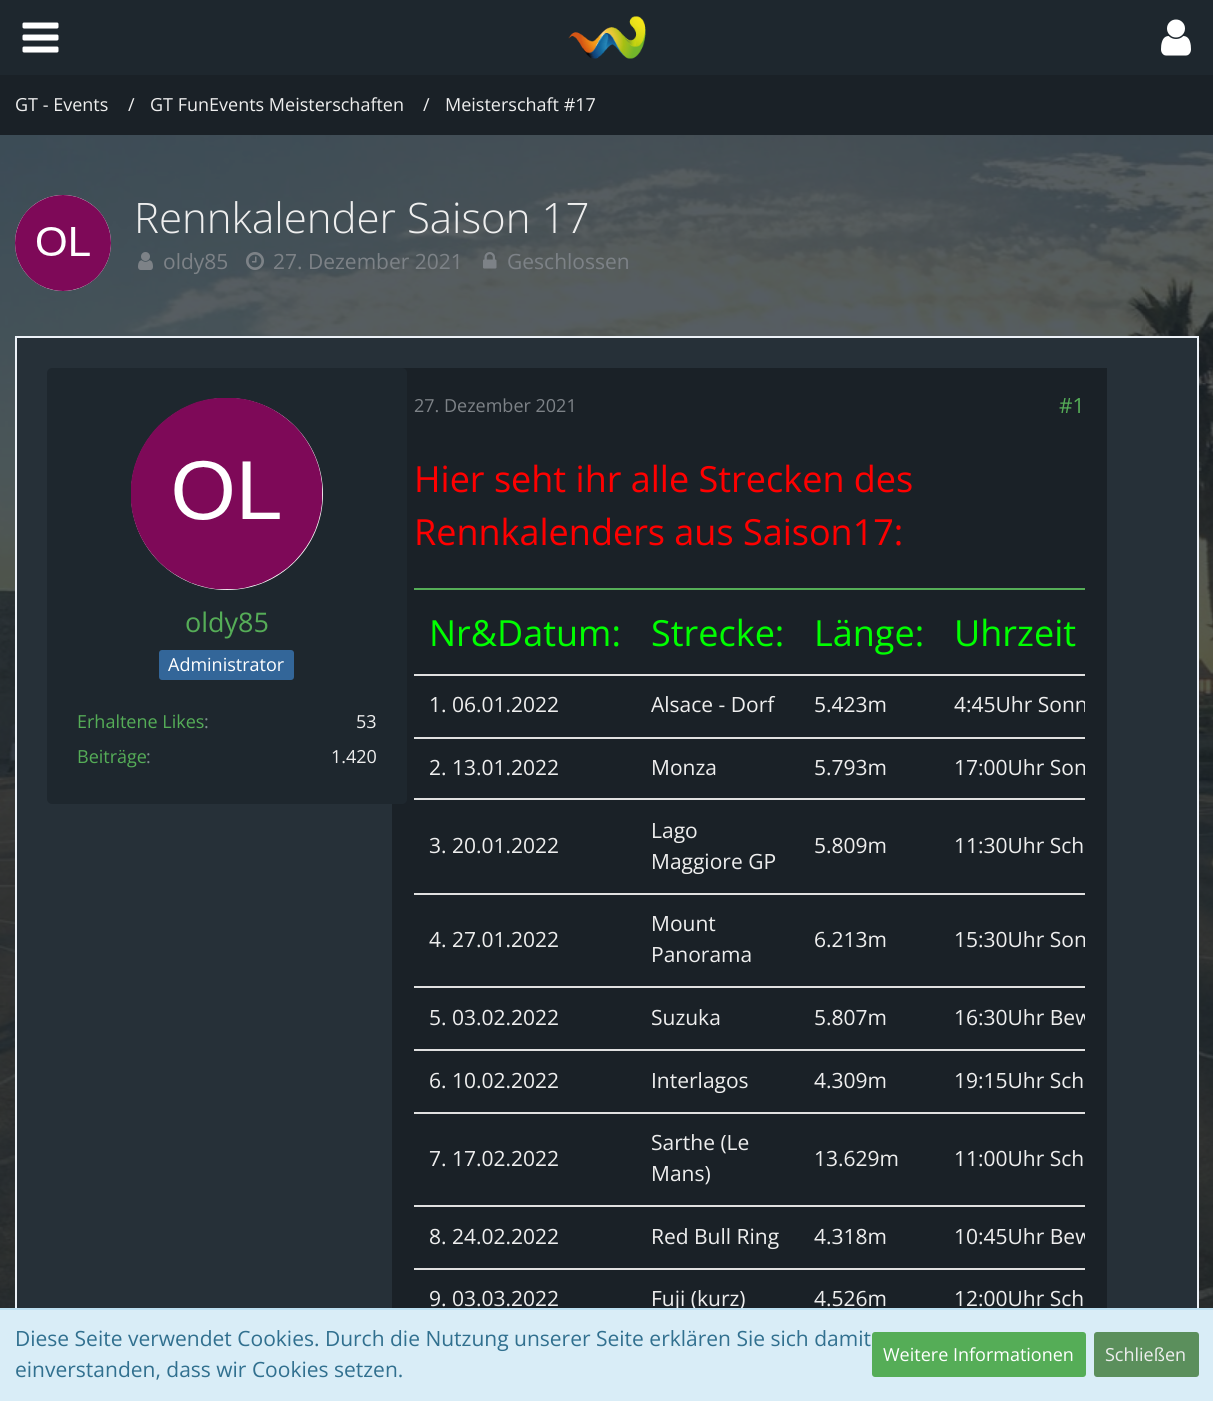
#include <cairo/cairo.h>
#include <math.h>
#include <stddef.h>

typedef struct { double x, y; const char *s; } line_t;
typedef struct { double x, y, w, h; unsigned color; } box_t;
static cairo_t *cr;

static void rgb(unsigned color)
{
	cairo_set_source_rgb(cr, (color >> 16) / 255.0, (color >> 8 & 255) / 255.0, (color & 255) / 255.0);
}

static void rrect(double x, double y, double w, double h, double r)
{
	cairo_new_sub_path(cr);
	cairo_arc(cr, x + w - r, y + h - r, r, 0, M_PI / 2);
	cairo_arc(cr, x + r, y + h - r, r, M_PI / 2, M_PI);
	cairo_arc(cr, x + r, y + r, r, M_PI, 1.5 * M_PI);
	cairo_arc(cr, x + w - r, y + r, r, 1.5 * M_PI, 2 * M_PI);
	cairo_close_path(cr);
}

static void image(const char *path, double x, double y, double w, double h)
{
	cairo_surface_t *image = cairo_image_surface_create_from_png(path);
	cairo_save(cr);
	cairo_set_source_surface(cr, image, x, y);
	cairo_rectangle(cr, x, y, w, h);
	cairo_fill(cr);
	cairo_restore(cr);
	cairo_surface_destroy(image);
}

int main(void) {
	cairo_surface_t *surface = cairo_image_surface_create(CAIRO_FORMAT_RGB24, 1213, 1401);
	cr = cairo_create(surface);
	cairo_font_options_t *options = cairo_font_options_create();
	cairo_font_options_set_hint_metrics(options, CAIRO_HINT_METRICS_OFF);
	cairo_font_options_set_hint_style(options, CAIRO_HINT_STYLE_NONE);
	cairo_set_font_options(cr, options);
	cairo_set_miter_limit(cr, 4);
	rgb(0xffffff);
	cairo_paint(cr);
	image("img/1.png", 0, 135, 1213, 1173);
	rgb(0x1e272e);
	cairo_rectangle(cr, 0, 0, 1213, 75);
	cairo_fill(cr);
	image("img/2.png", 22, 22, 37, 31);
	image("img/3.png", 1161, 19, 30, 37);
	image("img/4.png", 568, 16, 78, 43);
	rgb(0x1a2127);
	cairo_rectangle(cr, 0, 75, 1213, 60);
	cairo_fill(cr);
	rgb(0xffffff);
	cairo_arc(cr, 63, 243, 48, 0, 2 * M_PI);
	cairo_fill(cr);
	image("img/5.png", 15, 195, 96, 96);
	image("img/6.png", 138, 252, 15, 18);
	image("img/7.png", 246, 252, 18, 18);
	image("img/8.png", 483, 252, 14, 17);
	rgb(0x263038);
	cairo_rectangle(cr, 17, 338, 1180, 970);
	cairo_fill(cr);
	cairo_rectangle(cr, 16, 337, 1182, 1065);
	rgb(0xecf1f7);
	cairo_stroke(cr);
	rgb(0x1a2127);
	cairo_rectangle(cr, 392, 368, 715, 940);
	cairo_fill(cr);
	rgb(0x1e272e);
	rrect(47, 368, 360, 436, 5);
	cairo_fill(cr);
	rgb(0xffffff);
	cairo_arc(cr, 227, 494, 96, 0, 2 * M_PI);
	cairo_fill(cr);
	image("img/9.png", 131, 398, 192, 192);
	rgb(0x336699);
	rrect(159, 650, 135, 30, 3);
	cairo_fill(cr);
	{
		static const box_t items[] = {
			{414, 588, 671, 2, 0x55ad57},
			{414, 674, 671, 2, 0xe0e0e0},
			{414, 737, 671, 2, 0xe0e0e0},
			{414, 798, 671, 2, 0xe0e0e0},
			{414, 893, 671, 2, 0xe0e0e0},
			{414, 986, 671, 2, 0xe0e0e0},
			{414, 1049, 671, 2, 0xe0e0e0},
			{414, 1112, 671, 2, 0xe0e0e0},
			{414, 1205, 671, 2, 0xe0e0e0},
			{414, 1268, 671, 2, 0xe0e0e0},
		};
		for (size_t i = 0; i < sizeof items / sizeof *items; i++) {
			rgb(items[i].color);
			cairo_rectangle(cr, items[i].x, items[i].y, items[i].w, items[i].h);
			cairo_fill(cr);
		}
	}
	cairo_select_font_face(cr, "Open Sans", CAIRO_FONT_SLANT_NORMAL, CAIRO_FONT_WEIGHT_NORMAL);
	cairo_set_font_size(cr, 18);
	rgb(0xeeeeee);
	{
		static const line_t items[] = {
			{15, 111, "GT - Events"},
			{128, 111, "/"},
			{150, 111, "GT FunEvents Meisterschaften"},
			{423, 111, "/"},
			{445, 111, "Meisterschaft #17"},
		};
		for (size_t i = 0; i < sizeof items / sizeof *items; i++) {
			cairo_move_to(cr, items[i].x, items[i].y);
			cairo_show_text(cr, items[i].s);
		}
	}
	cairo_select_font_face(cr, "Open Sans Light", CAIRO_FONT_SLANT_NORMAL, CAIRO_FONT_WEIGHT_NORMAL);
	cairo_set_font_size(cr, 42);
	cairo_move_to(cr, 134, 233);
	cairo_show_text(cr, "Rennkalender Saison 17");
	cairo_select_font_face(cr, "Open Sans", CAIRO_FONT_SLANT_NORMAL, CAIRO_FONT_WEIGHT_NORMAL);
	cairo_set_font_size(cr, 21);
	rgb(0x7d8287);
	{
		static const line_t items[] = {
			{163, 269, "oldy85"},
			{273, 269, "27. Dezember 2021"},
			{507, 269, "Geschlossen"},
		};
		for (size_t i = 0; i < sizeof items / sizeof *items; i++) {
			cairo_move_to(cr, items[i].x, items[i].y);
			cairo_show_text(cr, items[i].s);
		}
	}
	cairo_set_font_size(cr, 27);
	rgb(0x55ad57);
	cairo_move_to(cr, 185, 632);
	cairo_show_text(cr, "oldy85");
	cairo_set_font_size(cr, 18);
	rgb(0xffffff);
	cairo_move_to(cr, 168, 671);
	cairo_show_text(cr, "Administrator");
	rgb(0x55ad57);
	cairo_move_to(cr, 77, 728);
	cairo_show_text(cr, "Erhaltene Likes");
	rgb(0x7f8c8d);
	cairo_move_to(cr, 204, 728);
	cairo_show_text(cr, ":");
	rgb(0xeeeeee);
	cairo_move_to(cr, 356, 728);
	cairo_show_text(cr, "53");
	rgb(0x55ad57);
	cairo_move_to(cr, 77, 763);
	cairo_show_text(cr, "Beiträge");
	rgb(0x7f8c8d);
	cairo_move_to(cr, 146, 763);
	cairo_show_text(cr, ":");
	rgb(0xeeeeee);
	cairo_move_to(cr, 331, 763);
	cairo_show_text(cr, "1.420");
	rgb(0x7d8287);
	cairo_move_to(cr, 414, 412);
	cairo_show_text(cr, "27. Dezember 2021");
	cairo_set_font_size(cr, 21);
	rgb(0x55ad57);
	cairo_move_to(cr, 1059, 413);
	cairo_show_text(cr, "#1");
	cairo_set_font_size(cr, 36);
	rgb(0xff0000);
	cairo_move_to(cr, 414, 492);
	cairo_show_text(cr, "Hier seht ihr alle Strecken des");
	cairo_move_to(cr, 414, 545);
	cairo_show_text(cr, "Rennkalenders aus Saison17:");
	rgb(0x00ff00);
	{
		static const line_t items[] = {
			{429, 646, "Nr&Datum:"},
			{651, 646, "Strecke:"},
			{814, 646, "Länge:"},
			{954, 646, "Uhrzeit"},
		};
		for (size_t i = 0; i < sizeof items / sizeof *items; i++) {
			cairo_move_to(cr, items[i].x, items[i].y);
			cairo_show_text(cr, items[i].s);
		}
	}
	cairo_set_font_size(cr, 21);
	rgb(0xeeeeee);
	{
		static const line_t items[] = {
			{429, 712, "1. 06.01.2022"},
			{651, 712, "Alsace - Dorf"},
			{814, 712, "5.423m"},
		};
		for (size_t i = 0; i < sizeof items / sizeof *items; i++) {
			cairo_move_to(cr, items[i].x, items[i].y);
			cairo_show_text(cr, items[i].s);
		}
	}
	cairo_save(cr);
	cairo_rectangle(cr, 414, 588, 671, 744);
	cairo_clip(cr);
	cairo_move_to(cr, 954, 712);
	cairo_show_text(cr, "4:45Uhr Sonn");
	cairo_restore(cr);
	{
		static const line_t items[] = {
			{429, 775, "2. 13.01.2022"},
			{651, 775, "Monza"},
			{814, 775, "5.793m"},
		};
		for (size_t i = 0; i < sizeof items / sizeof *items; i++) {
			cairo_move_to(cr, items[i].x, items[i].y);
			cairo_show_text(cr, items[i].s);
		}
	}
	cairo_save(cr);
	cairo_rectangle(cr, 414, 588, 671, 744);
	cairo_clip(cr);
	cairo_move_to(cr, 954, 775);
	cairo_show_text(cr, "17:00Uhr Son");
	cairo_restore(cr);
	{
		static const line_t items[] = {
			{429, 853, "3. 20.01.2022"},
			{651, 838, "Lago"},
			{651, 869, "Maggiore GP"},
			{814, 853, "5.809m"},
			{954, 853, "11:30Uhr Sch"},
			{429, 947, "4. 27.01.2022"},
			{651, 931, "Mount"},
			{651, 962, "Panorama"},
			{814, 947, "6.213m"},
		};
		for (size_t i = 0; i < sizeof items / sizeof *items; i++) {
			cairo_move_to(cr, items[i].x, items[i].y);
			cairo_show_text(cr, items[i].s);
		}
	}
	cairo_save(cr);
	cairo_rectangle(cr, 414, 588, 671, 744);
	cairo_clip(cr);
	cairo_move_to(cr, 954, 947);
	cairo_show_text(cr, "15:30Uhr Son");
	cairo_restore(cr);
	{
		static const line_t items[] = {
			{429, 1025, "5. 03.02.2022"},
			{651, 1025, "Suzuka"},
			{814, 1025, "5.807m"},
		};
		for (size_t i = 0; i < sizeof items / sizeof *items; i++) {
			cairo_move_to(cr, items[i].x, items[i].y);
			cairo_show_text(cr, items[i].s);
		}
	}
	cairo_save(cr);
	cairo_rectangle(cr, 414, 588, 671, 744);
	cairo_clip(cr);
	cairo_move_to(cr, 954, 1025);
	cairo_show_text(cr, "16:30Uhr Bew");
	cairo_restore(cr);
	{
		static const line_t items[] = {
			{429, 1088, "6. 10.02.2022"},
			{651, 1088, "Interlagos"},
			{814, 1088, "4.309m"},
			{954, 1088, "19:15Uhr Sch"},
			{429, 1166, "7. 17.02.2022"},
			{651, 1150, "Sarthe (Le"},
			{651, 1181, "Mans)"},
			{814, 1166, "13.629m"},
			{954, 1166, "11:00Uhr Sch"},
			{429, 1244, "8. 24.02.2022"},
			{651, 1244, "Red Bull Ring"},
			{814, 1244, "4.318m"},
		};
		for (size_t i = 0; i < sizeof items / sizeof *items; i++) {
			cairo_move_to(cr, items[i].x, items[i].y);
			cairo_show_text(cr, items[i].s);
		}
	}
	cairo_save(cr);
	cairo_rectangle(cr, 414, 588, 671, 744);
	cairo_clip(cr);
	cairo_move_to(cr, 954, 1244);
	cairo_show_text(cr, "10:45Uhr Bew");
	cairo_restore(cr);
	{
		static const line_t items[] = {
			{429, 1306, "9. 03.03.2022"},
			{651, 1306, "Fuji (kurz)"},
			{814, 1306, "4.526m"},
			{954, 1306, "12:00Uhr Sch"},
		};
		for (size_t i = 0; i < sizeof items / sizeof *items; i++) {
			cairo_move_to(cr, items[i].x, items[i].y);
			cairo_show_text(cr, items[i].s);
		}
	}
	rgb(0xd9edf7);
	cairo_rectangle(cr, 0, 1310, 1213, 91);
	cairo_fill(cr);
	rgb(0xbcdff1);
	cairo_rectangle(cr, 0, 1308, 1213, 2);
	cairo_fill(cr);
	rgb(0x31708f);
	cairo_move_to(cr, 15, 1346);
	cairo_show_text(cr, "Diese Seite verwendet Cookies. Durch die Nutzung unserer Seite erklären Sie sich damit");
	cairo_move_to(cr, 15, 1377);
	cairo_show_text(cr, "einverstanden, dass wir Cookies setzen.");
	rgb(0x55ad57);
	rrect(872, 1332, 214, 45, 3);
	cairo_fill(cr);
	cairo_set_font_size(cr, 18);
	rgb(0xffffff);
	cairo_move_to(cr, 883, 1361);
	cairo_show_text(cr, "Weitere Informationen");
	rgb(0x5b8f5c);
	rrect(1094, 1332, 105, 45, 3);
	cairo_fill(cr);
	rgb(0xeeeeee);
	cairo_move_to(cr, 1105, 1361);
	cairo_show_text(cr, "Schließen");
	cairo_surface_write_to_png(surface, "page.png");
	cairo_font_options_destroy(options);
	cairo_destroy(cr);
	cairo_surface_destroy(surface);
	return 0;
}
